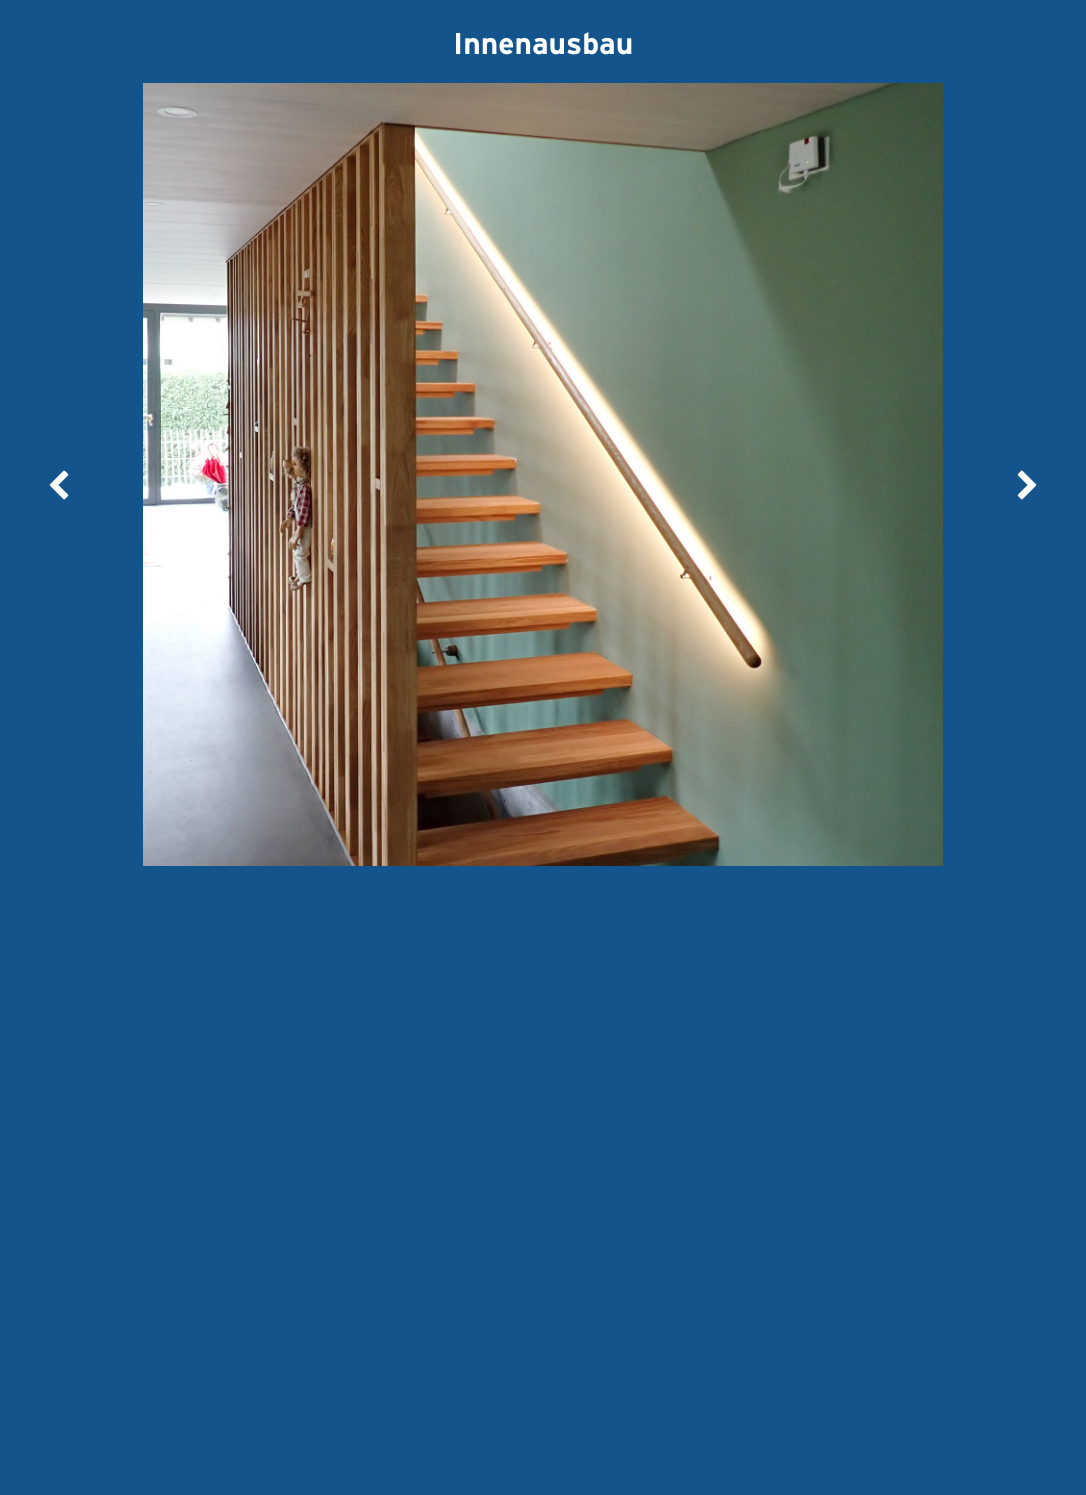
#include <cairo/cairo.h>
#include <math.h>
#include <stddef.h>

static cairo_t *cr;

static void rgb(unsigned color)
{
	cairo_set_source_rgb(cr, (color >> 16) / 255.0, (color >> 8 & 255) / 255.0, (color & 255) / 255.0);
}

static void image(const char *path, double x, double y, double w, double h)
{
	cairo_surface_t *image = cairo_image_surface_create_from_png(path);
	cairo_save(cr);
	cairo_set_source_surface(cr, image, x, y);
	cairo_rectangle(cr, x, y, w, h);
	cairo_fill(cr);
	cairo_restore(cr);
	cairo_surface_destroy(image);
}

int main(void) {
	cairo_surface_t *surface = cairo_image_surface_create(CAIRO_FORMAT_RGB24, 1086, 1495);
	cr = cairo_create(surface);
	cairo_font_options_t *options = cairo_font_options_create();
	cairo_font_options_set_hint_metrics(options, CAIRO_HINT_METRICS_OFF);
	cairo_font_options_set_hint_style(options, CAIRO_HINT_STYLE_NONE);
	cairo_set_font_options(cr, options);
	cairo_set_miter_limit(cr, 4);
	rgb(0x13548c);
	cairo_paint(cr);
	image("img/1.png", 143, 83, 800, 783);
	image("img/2.png", 49, 470, 20, 30);
	image("img/3.png", 1017, 470, 20, 30);
	cairo_select_font_face(cr, "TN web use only", CAIRO_FONT_SLANT_NORMAL, CAIRO_FONT_WEIGHT_BOLD);
	cairo_set_font_size(cr, 30);
	rgb(0xffffff);
	cairo_move_to(cr, 453, 54);
	cairo_show_text(cr, "Innenausbau");
	cairo_surface_write_to_png(surface, "page.png");
	cairo_font_options_destroy(options);
	cairo_destroy(cr);
	cairo_surface_destroy(surface);
	return 0;
}
